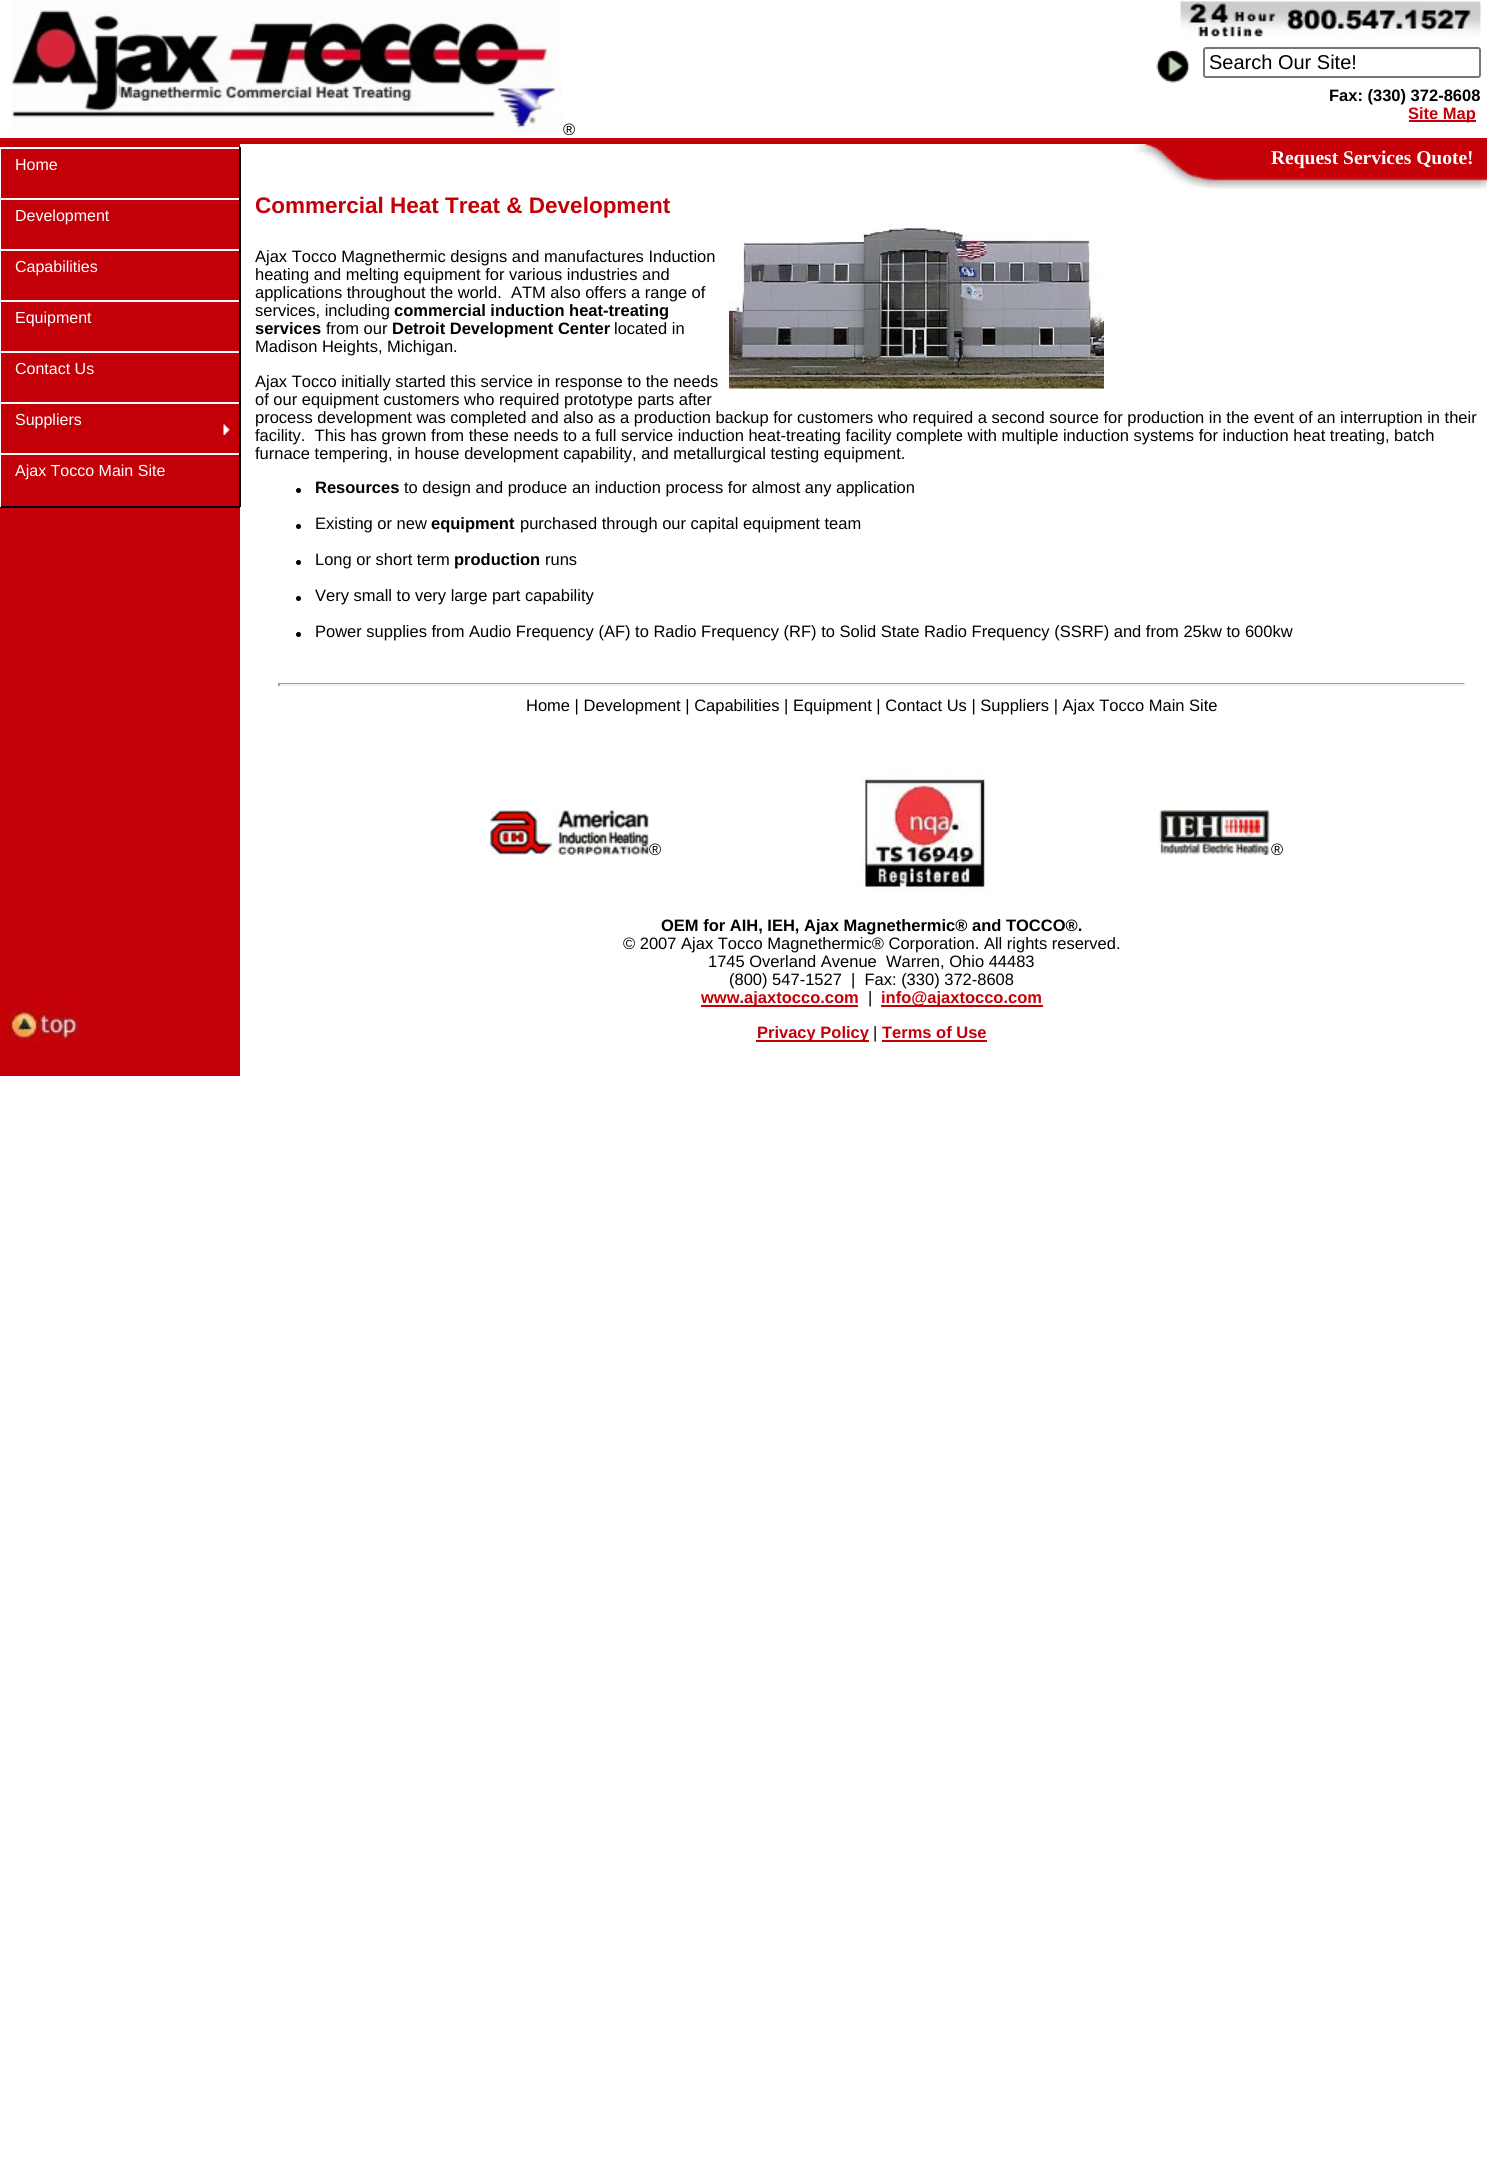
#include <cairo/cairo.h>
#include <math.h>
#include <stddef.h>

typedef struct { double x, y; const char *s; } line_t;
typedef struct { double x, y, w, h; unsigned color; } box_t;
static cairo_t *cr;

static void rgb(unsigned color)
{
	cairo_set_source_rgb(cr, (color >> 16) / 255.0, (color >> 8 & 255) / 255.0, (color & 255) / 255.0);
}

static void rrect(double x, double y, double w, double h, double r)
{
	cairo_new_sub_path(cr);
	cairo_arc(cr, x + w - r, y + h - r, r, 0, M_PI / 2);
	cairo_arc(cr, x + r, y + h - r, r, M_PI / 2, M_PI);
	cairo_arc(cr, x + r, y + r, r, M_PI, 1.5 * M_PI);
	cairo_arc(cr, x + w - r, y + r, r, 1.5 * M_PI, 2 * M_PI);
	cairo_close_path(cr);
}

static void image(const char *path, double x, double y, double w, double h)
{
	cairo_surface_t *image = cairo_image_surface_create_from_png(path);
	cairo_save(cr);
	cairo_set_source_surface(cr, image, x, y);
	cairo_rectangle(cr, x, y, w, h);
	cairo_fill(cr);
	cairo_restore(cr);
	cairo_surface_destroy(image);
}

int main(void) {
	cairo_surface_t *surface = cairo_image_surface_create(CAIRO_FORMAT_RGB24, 1487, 2171);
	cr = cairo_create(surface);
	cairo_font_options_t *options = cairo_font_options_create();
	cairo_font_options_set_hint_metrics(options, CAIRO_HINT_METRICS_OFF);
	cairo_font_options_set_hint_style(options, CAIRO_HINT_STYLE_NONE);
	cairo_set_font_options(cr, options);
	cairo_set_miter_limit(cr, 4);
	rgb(0xffffff);
	cairo_paint(cr);
	{
		static const box_t items[] = {
			{0, 144, 240, 932, 0xc30008},
			{0, 147, 240, 2, 0xffffff},
			{239, 147, 2, 54, 0x000000},
			{0, 147, 1, 54, 0xffffff},
			{0, 198, 240, 2, 0xffffff},
			{239, 198, 2, 54, 0x000000},
			{0, 198, 1, 54, 0xffffff},
			{0, 249, 240, 2, 0xffffff},
			{239, 249, 2, 54, 0x000000},
			{0, 249, 1, 54, 0xffffff},
			{0, 300, 240, 2, 0xffffff},
			{239, 300, 2, 54, 0x000000},
			{0, 300, 1, 54, 0xffffff},
			{0, 351, 240, 2, 0xffffff},
			{239, 351, 2, 54, 0x000000},
			{0, 351, 1, 54, 0xffffff},
			{0, 402, 240, 2, 0xffffff},
			{239, 402, 2, 54, 0x000000},
			{0, 402, 1, 54, 0xffffff},
		};
		for (size_t i = 0; i < sizeof items / sizeof *items; i++) {
			rgb(items[i].color);
			cairo_rectangle(cr, items[i].x, items[i].y, items[i].w, items[i].h);
			cairo_fill(cr);
		}
	}
	image("img/1.png", 223, 424, 7, 11);
	{
		static const box_t items[] = {
			{0, 453, 240, 2, 0xffffff},
			{239, 453, 2, 54, 0x000000},
			{0, 506, 240, 2, 0x000000},
			{0, 453, 1, 54, 0xffffff},
		};
		for (size_t i = 0; i < sizeof items / sizeof *items; i++) {
			rgb(items[i].color);
			cairo_rectangle(cr, items[i].x, items[i].y, items[i].w, items[i].h);
			cairo_fill(cr);
		}
	}
	image("img/2.png", 1156, 50, 34, 33);
	rrect(1204, 48, 276, 29, 2);
	rgb(0x767676);
	cairo_stroke(cr);
	rgb(0xc30008);
	cairo_rectangle(cr, 1409, 120, 67, 2);
	cairo_fill(cr);
	image("img/3.png", 1180, 1, 301, 36);
	image("img/4.png", 11, 0, 551, 135);
	cairo_rectangle(cr, 0, 138, 1487, 6);
	cairo_fill(cr);
	image("img/5.png", 1135, 144, 352, 45);
	image("img/6.png", 729, 224, 375, 165);
	rgb(0x000000);
	cairo_arc(cr, 298.5, 490.5, 2.5, 0, 2 * M_PI);
	cairo_fill(cr);
	cairo_arc(cr, 298.5, 526.5, 2.5, 0, 2 * M_PI);
	cairo_fill(cr);
	cairo_arc(cr, 298.5, 562.5, 2.5, 0, 2 * M_PI);
	cairo_fill(cr);
	cairo_arc(cr, 298.5, 598.5, 2.5, 0, 2 * M_PI);
	cairo_fill(cr);
	cairo_arc(cr, 298.5, 634.5, 2.5, 0, 2 * M_PI);
	cairo_fill(cr);
	image("img/7.png", 0, 996, 96, 49);
	{
		static const box_t items[] = {
			{278, 683, 1188, 1, 0x9f9f9f},
			{1464, 683, 2, 3, 0xeeeeee},
			{278, 684, 1188, 2, 0xeeeeee},
			{278, 683, 2, 3, 0x9f9f9f},
		};
		for (size_t i = 0; i < sizeof items / sizeof *items; i++) {
			rgb(items[i].color);
			cairo_rectangle(cr, items[i].x, items[i].y, items[i].w, items[i].h);
			cairo_fill(cr);
		}
	}
	image("img/8.png", 490, 810, 160, 45);
	image("img/9.png", 861, 772, 129, 120);
	image("img/10.png", 1159, 810, 112, 45);
	{
		static const box_t items[] = {
			{701, 1005, 157, 2, 0xc30008},
			{881, 1005, 162, 2, 0xc30008},
			{756, 1040, 113, 2, 0xc30008},
			{882, 1040, 105, 2, 0xc30008},
		};
		for (size_t i = 0; i < sizeof items / sizeof *items; i++) {
			rgb(items[i].color);
			cairo_rectangle(cr, items[i].x, items[i].y, items[i].w, items[i].h);
			cairo_fill(cr);
		}
	}
	cairo_select_font_face(cr, "Liberation Sans", CAIRO_FONT_SLANT_NORMAL, CAIRO_FONT_WEIGHT_NORMAL);
	cairo_set_font_size(cr, 16);
	rgb(0xffffff);
	{
		static const line_t items[] = {
			{15, 170, "Home"},
			{15, 221, "Development"},
			{15, 272, "Capabilities"},
			{15, 323, "Equipment"},
			{15, 374, "Contact Us"},
			{15, 425, "Suppliers"},
			{15, 476, "Ajax Tocco Main Site"},
		};
		for (size_t i = 0; i < sizeof items / sizeof *items; i++) {
			cairo_move_to(cr, items[i].x, items[i].y);
			cairo_show_text(cr, items[i].s);
		}
	}
	cairo_set_font_size(cr, 20);
	rgb(0x000000);
	cairo_move_to(cr, 1209, 69);
	cairo_show_text(cr, "Search Our Site!");
	cairo_select_font_face(cr, "Liberation Sans", CAIRO_FONT_SLANT_NORMAL, CAIRO_FONT_WEIGHT_BOLD);
	cairo_set_font_size(cr, 16.5);
	cairo_move_to(cr, 1329, 101);
	cairo_show_text(cr, "Fax: (330) 372-8608");
	rgb(0xc30008);
	cairo_move_to(cr, 1408, 119);
	cairo_show_text(cr, "Site Map");
	cairo_select_font_face(cr, "Liberation Sans", CAIRO_FONT_SLANT_NORMAL, CAIRO_FONT_WEIGHT_NORMAL);
	rgb(0x000000);
	cairo_move_to(cr, 563, 135);
	cairo_show_text(cr, "®");
	cairo_select_font_face(cr, "Liberation Serif", CAIRO_FONT_SLANT_NORMAL, CAIRO_FONT_WEIGHT_BOLD);
	cairo_set_font_size(cr, 19.5);
	rgb(0xffffff);
	cairo_move_to(cr, 1271, 164);
	cairo_show_text(cr, "Request Services Quote!");
	cairo_select_font_face(cr, "Liberation Sans", CAIRO_FONT_SLANT_NORMAL, CAIRO_FONT_WEIGHT_BOLD);
	cairo_set_font_size(cr, 22.5);
	rgb(0xc30008);
	cairo_move_to(cr, 255, 213);
	cairo_show_text(cr, "Commercial Heat Treat & Development");
	cairo_select_font_face(cr, "Liberation Sans", CAIRO_FONT_SLANT_NORMAL, CAIRO_FONT_WEIGHT_NORMAL);
	cairo_set_font_size(cr, 16.5);
	rgb(0x000000);
	{
		static const line_t items[] = {
			{255, 262, "Ajax Tocco Magnethermic designs and manufactures Induction"},
			{255, 280, "heating and melting equipment for various industries and"},
			{255, 298, "applications throughout the world.  ATM also offers a range of"},
			{255, 316, "services, including"},
		};
		for (size_t i = 0; i < sizeof items / sizeof *items; i++) {
			cairo_move_to(cr, items[i].x, items[i].y);
			cairo_show_text(cr, items[i].s);
		}
	}
	cairo_select_font_face(cr, "Liberation Sans", CAIRO_FONT_SLANT_NORMAL, CAIRO_FONT_WEIGHT_BOLD);
	cairo_move_to(cr, 394, 316);
	cairo_show_text(cr, "commercial induction heat-treating");
	cairo_move_to(cr, 255, 334);
	cairo_show_text(cr, "services");
	cairo_select_font_face(cr, "Liberation Sans", CAIRO_FONT_SLANT_NORMAL, CAIRO_FONT_WEIGHT_NORMAL);
	cairo_move_to(cr, 326, 334);
	cairo_show_text(cr, "from our");
	cairo_select_font_face(cr, "Liberation Sans", CAIRO_FONT_SLANT_NORMAL, CAIRO_FONT_WEIGHT_BOLD);
	cairo_move_to(cr, 392, 334);
	cairo_show_text(cr, "Detroit Development Center");
	cairo_select_font_face(cr, "Liberation Sans", CAIRO_FONT_SLANT_NORMAL, CAIRO_FONT_WEIGHT_NORMAL);
	{
		static const line_t items[] = {
			{614, 334, "located in"},
			{255, 352, "Madison Heights, Michigan."},
			{255, 387, "Ajax Tocco initially started this service in response to the needs"},
			{255, 405, "of our equipment customers who required prototype parts after"},
			{255, 423, "process development was completed and also as a production backup for customers who required a second source for production in the event of an interruption in their"},
			{255, 441, "facility.  This has grown from these needs to a full service induction heat-treating facility complete with multiple induction systems for induction heat treating, batch"},
			{255, 459, "furnace tempering, in house development capability, and metallurgical testing equipment."},
		};
		for (size_t i = 0; i < sizeof items / sizeof *items; i++) {
			cairo_move_to(cr, items[i].x, items[i].y);
			cairo_show_text(cr, items[i].s);
		}
	}
	cairo_select_font_face(cr, "Liberation Sans", CAIRO_FONT_SLANT_NORMAL, CAIRO_FONT_WEIGHT_BOLD);
	cairo_move_to(cr, 315, 493);
	cairo_show_text(cr, "Resources");
	cairo_select_font_face(cr, "Liberation Sans", CAIRO_FONT_SLANT_NORMAL, CAIRO_FONT_WEIGHT_NORMAL);
	cairo_move_to(cr, 404, 493);
	cairo_show_text(cr, "to design and produce an induction process for almost any application");
	cairo_move_to(cr, 315, 529);
	cairo_show_text(cr, "Existing or new");
	cairo_select_font_face(cr, "Liberation Sans", CAIRO_FONT_SLANT_NORMAL, CAIRO_FONT_WEIGHT_BOLD);
	cairo_move_to(cr, 431, 529);
	cairo_show_text(cr, "equipment");
	cairo_select_font_face(cr, "Liberation Sans", CAIRO_FONT_SLANT_NORMAL, CAIRO_FONT_WEIGHT_NORMAL);
	cairo_move_to(cr, 520, 529);
	cairo_show_text(cr, "purchased through our capital equipment team");
	cairo_move_to(cr, 315, 565);
	cairo_show_text(cr, "Long or short term");
	cairo_select_font_face(cr, "Liberation Sans", CAIRO_FONT_SLANT_NORMAL, CAIRO_FONT_WEIGHT_BOLD);
	cairo_move_to(cr, 454, 565);
	cairo_show_text(cr, "production");
	cairo_select_font_face(cr, "Liberation Sans", CAIRO_FONT_SLANT_NORMAL, CAIRO_FONT_WEIGHT_NORMAL);
	{
		static const line_t items[] = {
			{545, 565, "runs"},
			{315, 601, "Very small to very large part capability"},
			{315, 637, "Power supplies from Audio Frequency (AF) to Radio Frequency (RF) to Solid State Radio Frequency (SSRF) and from 25kw to 600kw"},
			{526, 711, "Home | Development | Capabilities | Equipment | Contact Us | Suppliers | Ajax Tocco Main Site"},
			{649, 855, "®"},
			{1271, 855, "®"},
		};
		for (size_t i = 0; i < sizeof items / sizeof *items; i++) {
			cairo_move_to(cr, items[i].x, items[i].y);
			cairo_show_text(cr, items[i].s);
		}
	}
	cairo_select_font_face(cr, "Liberation Sans", CAIRO_FONT_SLANT_NORMAL, CAIRO_FONT_WEIGHT_BOLD);
	cairo_move_to(cr, 661, 931);
	cairo_show_text(cr, "OEM for AIH, IEH, Ajax Magnethermic® and TOCCO®.");
	cairo_select_font_face(cr, "Liberation Sans", CAIRO_FONT_SLANT_NORMAL, CAIRO_FONT_WEIGHT_NORMAL);
	{
		static const line_t items[] = {
			{623, 949, "© 2007 Ajax Tocco Magnethermic® Corporation. All rights reserved."},
			{708, 967, "1745 Overland Avenue  Warren, Ohio 44483"},
			{729, 985, "(800) 547-1527  |  Fax: (330) 372-8608"},
		};
		for (size_t i = 0; i < sizeof items / sizeof *items; i++) {
			cairo_move_to(cr, items[i].x, items[i].y);
			cairo_show_text(cr, items[i].s);
		}
	}
	cairo_select_font_face(cr, "Liberation Sans", CAIRO_FONT_SLANT_NORMAL, CAIRO_FONT_WEIGHT_BOLD);
	rgb(0xc30008);
	cairo_move_to(cr, 701, 1003);
	cairo_show_text(cr, "www.ajaxtocco.com");
	cairo_select_font_face(cr, "Liberation Sans", CAIRO_FONT_SLANT_NORMAL, CAIRO_FONT_WEIGHT_NORMAL);
	rgb(0x000000);
	cairo_move_to(cr, 868, 1003);
	cairo_show_text(cr, "|");
	cairo_select_font_face(cr, "Liberation Sans", CAIRO_FONT_SLANT_NORMAL, CAIRO_FONT_WEIGHT_BOLD);
	rgb(0xc30008);
	cairo_move_to(cr, 881, 1003);
	cairo_show_text(cr, "info@ajaxtocco.com");
	cairo_move_to(cr, 757, 1038);
	cairo_show_text(cr, "Privacy Policy");
	cairo_select_font_face(cr, "Liberation Sans", CAIRO_FONT_SLANT_NORMAL, CAIRO_FONT_WEIGHT_NORMAL);
	rgb(0x000000);
	cairo_move_to(cr, 873, 1038);
	cairo_show_text(cr, "|");
	cairo_select_font_face(cr, "Liberation Sans", CAIRO_FONT_SLANT_NORMAL, CAIRO_FONT_WEIGHT_BOLD);
	rgb(0xc30008);
	cairo_move_to(cr, 882, 1038);
	cairo_show_text(cr, "Terms of Use");
	cairo_surface_write_to_png(surface, "page.png");
	cairo_font_options_destroy(options);
	cairo_destroy(cr);
	cairo_surface_destroy(surface);
	return 0;
}
